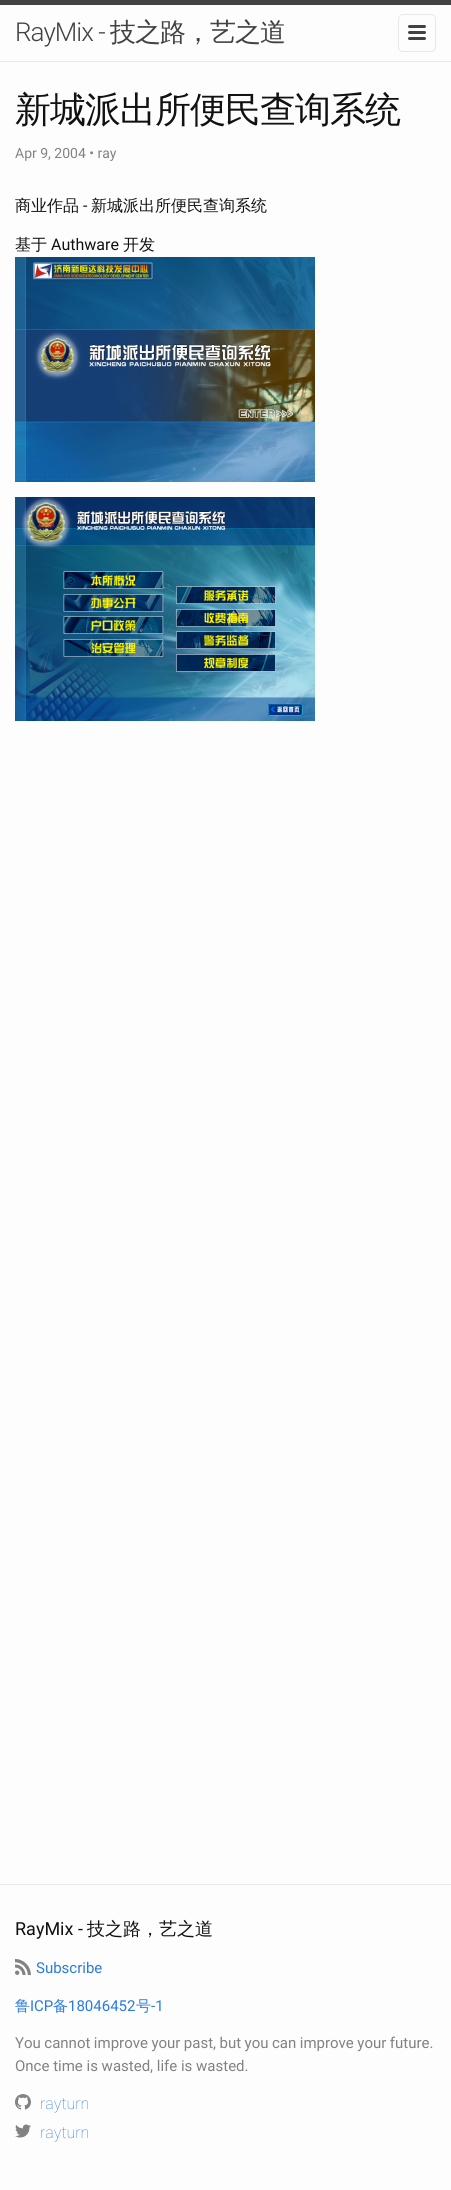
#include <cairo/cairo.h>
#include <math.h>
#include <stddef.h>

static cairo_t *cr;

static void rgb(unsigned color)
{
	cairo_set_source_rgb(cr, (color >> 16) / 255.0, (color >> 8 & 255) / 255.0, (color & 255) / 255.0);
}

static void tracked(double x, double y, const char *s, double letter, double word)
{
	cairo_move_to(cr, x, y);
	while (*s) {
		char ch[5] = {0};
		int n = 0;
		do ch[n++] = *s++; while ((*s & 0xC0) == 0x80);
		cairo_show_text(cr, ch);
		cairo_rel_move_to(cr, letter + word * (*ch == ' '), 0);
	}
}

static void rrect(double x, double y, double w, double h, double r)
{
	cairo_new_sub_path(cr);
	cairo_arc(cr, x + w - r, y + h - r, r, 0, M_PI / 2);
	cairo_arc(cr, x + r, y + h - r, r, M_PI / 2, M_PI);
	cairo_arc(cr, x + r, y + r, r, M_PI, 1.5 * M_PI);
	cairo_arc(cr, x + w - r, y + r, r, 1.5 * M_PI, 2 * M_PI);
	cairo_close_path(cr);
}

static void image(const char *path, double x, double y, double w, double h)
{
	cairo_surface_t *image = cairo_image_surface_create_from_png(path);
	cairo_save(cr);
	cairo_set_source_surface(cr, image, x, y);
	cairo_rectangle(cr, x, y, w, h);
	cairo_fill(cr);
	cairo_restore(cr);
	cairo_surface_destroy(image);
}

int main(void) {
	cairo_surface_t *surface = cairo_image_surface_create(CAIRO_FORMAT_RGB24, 451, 2190);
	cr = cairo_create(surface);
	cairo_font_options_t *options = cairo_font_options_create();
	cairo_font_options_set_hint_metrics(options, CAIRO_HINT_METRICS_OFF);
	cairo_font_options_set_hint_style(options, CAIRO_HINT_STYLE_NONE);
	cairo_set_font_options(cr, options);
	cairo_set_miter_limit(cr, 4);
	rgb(0xfdfdfd);
	cairo_paint(cr);
	rgb(0x424242);
	cairo_rectangle(cr, 0, 0, 451, 5);
	cairo_fill(cr);
	rgb(0xe8e8e8);
	cairo_rectangle(cr, 0, 61, 451, 1);
	cairo_fill(cr);
	rrect(398.5, 14.5, 37, 37, 4.5);
	cairo_set_line_width(cr, 1);
	cairo_stroke(cr);
	image("img/1.png", 408, 25, 18, 15);
	image("img/2.png", 15, 257, 300, 225);
	image("img/3.png", 15, 497, 300, 224);
	cairo_rectangle(cr, 0, 1884, 451, 1);
	cairo_fill(cr);
	image("img/4.png", 15, 1959, 16, 16);
	image("img/5.png", 15, 2094, 16, 16);
	image("img/6.png", 15, 2124, 16, 14);
	cairo_select_font_face(cr, "Roboto Light", CAIRO_FONT_SLANT_NORMAL, CAIRO_FONT_WEIGHT_NORMAL);
	cairo_set_font_size(cr, 26);
	rgb(0x424242);
	tracked(15, 41, "RayMix -", -1, 0);
	cairo_select_font_face(cr, "WenQuanYi Zen Hei Medium", CAIRO_FONT_SLANT_NORMAL, CAIRO_FONT_WEIGHT_NORMAL);
	tracked(110, 41, "技之路，艺之道", -1, 0);
	cairo_set_font_size(cr, 36);
	rgb(0x111111);
	tracked(15, 122, "新城派出所便民查询系统", -1, 0);
	cairo_select_font_face(cr, "Roboto", CAIRO_FONT_SLANT_NORMAL, CAIRO_FONT_WEIGHT_NORMAL);
	cairo_set_font_size(cr, 14);
	rgb(0x828282);
	cairo_move_to(cr, 15, 158);
	cairo_show_text(cr, "Apr 9, 2004 • ray");
	cairo_select_font_face(cr, "WenQuanYi Zen Hei Medium", CAIRO_FONT_SLANT_NORMAL, CAIRO_FONT_WEIGHT_NORMAL);
	cairo_set_font_size(cr, 16);
	rgb(0x111111);
	cairo_move_to(cr, 15, 211);
	cairo_show_text(cr, "商业作品");
	cairo_select_font_face(cr, "Roboto", CAIRO_FONT_SLANT_NORMAL, CAIRO_FONT_WEIGHT_NORMAL);
	cairo_move_to(cr, 83, 211);
	cairo_show_text(cr, "-");
	cairo_select_font_face(cr, "WenQuanYi Zen Hei Medium", CAIRO_FONT_SLANT_NORMAL, CAIRO_FONT_WEIGHT_NORMAL);
	cairo_move_to(cr, 91, 211);
	cairo_show_text(cr, "新城派出所便民查询系统");
	cairo_move_to(cr, 15, 250);
	cairo_show_text(cr, "基于");
	cairo_select_font_face(cr, "Roboto", CAIRO_FONT_SLANT_NORMAL, CAIRO_FONT_WEIGHT_NORMAL);
	cairo_move_to(cr, 51, 250);
	cairo_show_text(cr, "Authware");
	cairo_select_font_face(cr, "WenQuanYi Zen Hei Medium", CAIRO_FONT_SLANT_NORMAL, CAIRO_FONT_WEIGHT_NORMAL);
	cairo_move_to(cr, 123, 250);
	cairo_show_text(cr, "开发");
	cairo_select_font_face(cr, "Roboto", CAIRO_FONT_SLANT_NORMAL, CAIRO_FONT_WEIGHT_NORMAL);
	cairo_set_font_size(cr, 18);
	cairo_move_to(cr, 15, 1935);
	cairo_show_text(cr, "RayMix -");
	cairo_select_font_face(cr, "WenQuanYi Zen Hei Medium", CAIRO_FONT_SLANT_NORMAL, CAIRO_FONT_WEIGHT_NORMAL);
	cairo_move_to(cr, 87, 1935);
	cairo_show_text(cr, "技之路，艺之道");
	cairo_select_font_face(cr, "Roboto", CAIRO_FONT_SLANT_NORMAL, CAIRO_FONT_WEIGHT_NORMAL);
	cairo_set_font_size(cr, 15);
	rgb(0x2a7ae2);
	cairo_move_to(cr, 36, 1973);
	cairo_show_text(cr, "Subscribe");
	cairo_select_font_face(cr, "WenQuanYi Zen Hei Medium", CAIRO_FONT_SLANT_NORMAL, CAIRO_FONT_WEIGHT_NORMAL);
	cairo_move_to(cr, 15, 2011);
	cairo_show_text(cr, "鲁");
	cairo_select_font_face(cr, "Roboto", CAIRO_FONT_SLANT_NORMAL, CAIRO_FONT_WEIGHT_NORMAL);
	cairo_move_to(cr, 30, 2011);
	cairo_show_text(cr, "ICP");
	cairo_select_font_face(cr, "WenQuanYi Zen Hei Medium", CAIRO_FONT_SLANT_NORMAL, CAIRO_FONT_WEIGHT_NORMAL);
	cairo_move_to(cr, 53, 2011);
	cairo_show_text(cr, "备");
	cairo_select_font_face(cr, "Roboto", CAIRO_FONT_SLANT_NORMAL, CAIRO_FONT_WEIGHT_NORMAL);
	cairo_move_to(cr, 68, 2011);
	cairo_show_text(cr, "18046452");
	cairo_select_font_face(cr, "WenQuanYi Zen Hei Medium", CAIRO_FONT_SLANT_NORMAL, CAIRO_FONT_WEIGHT_NORMAL);
	cairo_move_to(cr, 136, 2011);
	cairo_show_text(cr, "号");
	cairo_select_font_face(cr, "Roboto", CAIRO_FONT_SLANT_NORMAL, CAIRO_FONT_WEIGHT_NORMAL);
	cairo_move_to(cr, 151, 2011);
	cairo_show_text(cr, "-1");
	rgb(0x828282);
	tracked(15, 2048, "You cannot improve your past, but you can improve your future.", 0, -0.25);
	cairo_move_to(cr, 15, 2071);
	cairo_show_text(cr, "Once time is wasted, life is wasted.");
	cairo_select_font_face(cr, "Roboto Thin", CAIRO_FONT_SLANT_NORMAL, CAIRO_FONT_WEIGHT_NORMAL);
	cairo_set_font_size(cr, 16);
	rgb(0x2a7ae2);
	cairo_move_to(cr, 40, 2109);
	cairo_show_text(cr, "rayturn");
	cairo_move_to(cr, 40, 2138);
	cairo_show_text(cr, "rayturn");
	cairo_surface_write_to_png(surface, "page.png");
	cairo_font_options_destroy(options);
	cairo_destroy(cr);
	cairo_surface_destroy(surface);
	return 0;
}
